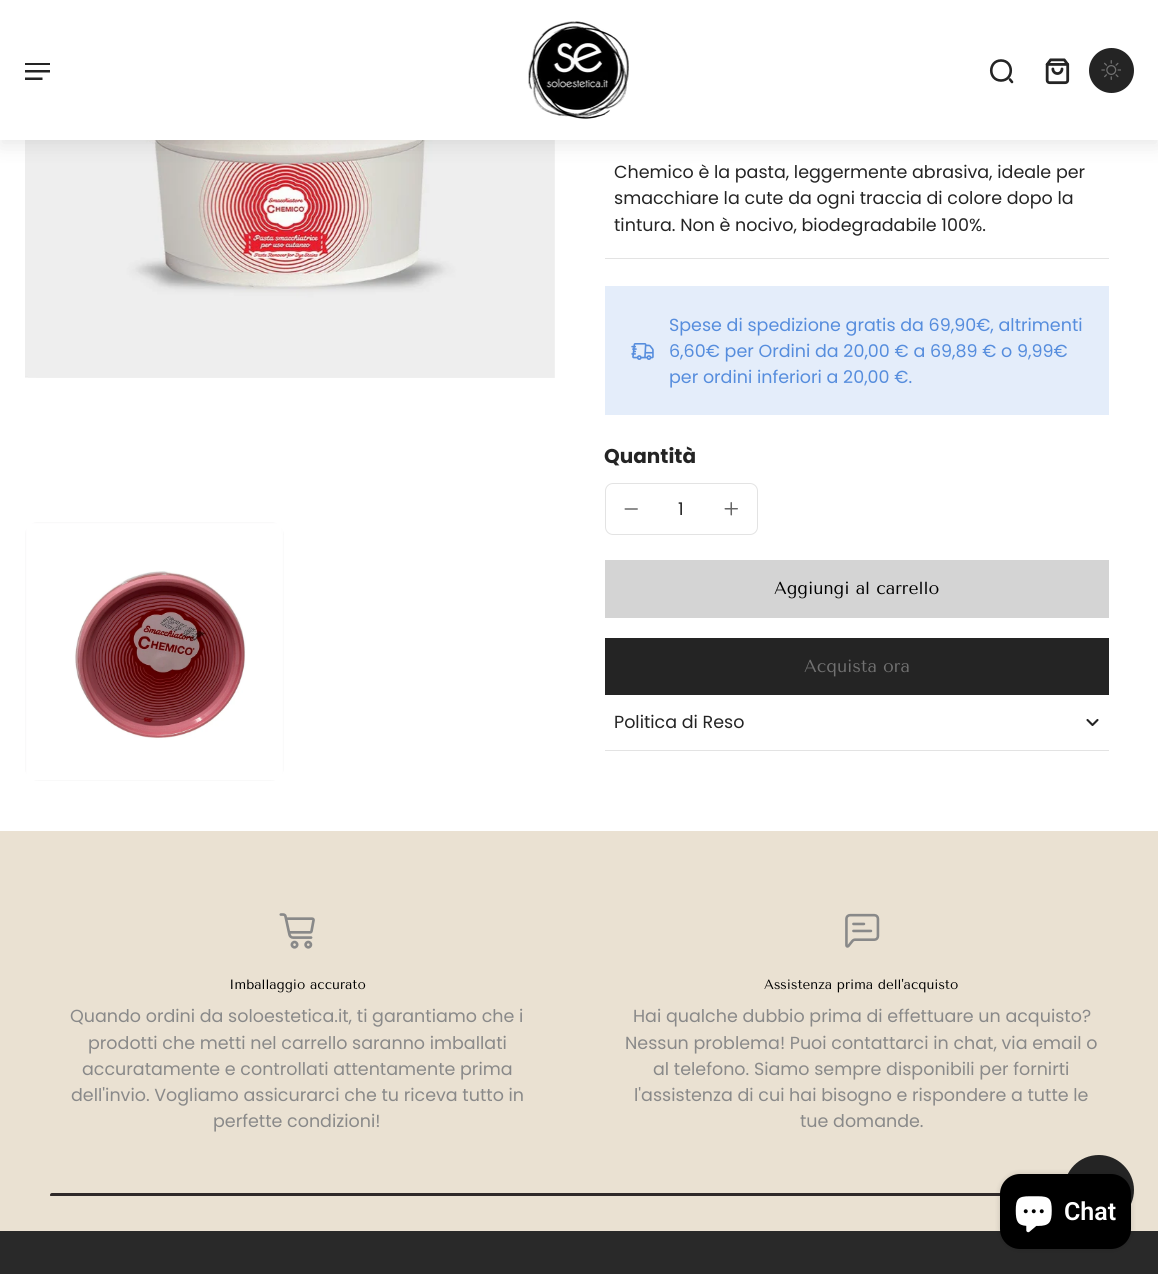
#include <cairo/cairo.h>
#include <math.h>
#include <stddef.h>

typedef struct { double x, y; const char *s; } line_t;
typedef struct { double x, y, w, h; unsigned color; } box_t;
static cairo_t *cr;

static void rgb(unsigned color)
{
	cairo_set_source_rgb(cr, (color >> 16) / 255.0, (color >> 8 & 255) / 255.0, (color & 255) / 255.0);
}

static void rrect(double x, double y, double w, double h, double r)
{
	cairo_new_sub_path(cr);
	cairo_arc(cr, x + w - r, y + h - r, r, 0, M_PI / 2);
	cairo_arc(cr, x + r, y + h - r, r, M_PI / 2, M_PI);
	cairo_arc(cr, x + r, y + r, r, M_PI, 1.5 * M_PI);
	cairo_arc(cr, x + w - r, y + r, r, 1.5 * M_PI, 2 * M_PI);
	cairo_close_path(cr);
}

static void soft_shadow(double x, double y, double w, double h, double r, double blur, double alpha)
{
	cairo_push_group_with_content(cr, CAIRO_CONTENT_ALPHA);
	cairo_set_operator(cr, CAIRO_OPERATOR_SOURCE);
	for (int i = 15; i >= -15 && fmin(w, h) + blur * i / 3 > 0; i -= 2) {
		double e = blur * i / 6;
		cairo_set_source_rgba(cr, 0, 0, 0, alpha * erfc((i - 1) / 8.5) / 2);
		rrect(x - e, y - e, w + 2 * e, h + 2 * e, fmax(0, fmin(r + e + blur * .6, fmin(w, h) / 2 + e)));
		cairo_fill(cr);
	}
	cairo_pattern_t *soft = cairo_pop_group(cr);
	cairo_mask(cr, soft);
	cairo_pattern_destroy(soft);
}

static void image(const char *path, double x, double y, double w, double h)
{
	cairo_surface_t *image = cairo_image_surface_create_from_png(path);
	cairo_save(cr);
	cairo_set_source_surface(cr, image, x, y);
	cairo_rectangle(cr, x, y, w, h);
	cairo_fill(cr);
	cairo_restore(cr);
	cairo_surface_destroy(image);
}

int main(void) {
	cairo_surface_t *surface = cairo_image_surface_create(CAIRO_FORMAT_RGB24, 1158, 1274);
	cr = cairo_create(surface);
	cairo_font_options_t *options = cairo_font_options_create();
	cairo_font_options_set_hint_metrics(options, CAIRO_HINT_METRICS_OFF);
	cairo_font_options_set_hint_style(options, CAIRO_HINT_STYLE_NONE);
	cairo_set_font_options(cr, options);
	cairo_set_miter_limit(cr, 4);
	rgb(0xffffff);
	cairo_paint(cr);
	image("img/5.png", 25, 140, 530, 238);
	rgb(0x242424);
	soft_shadow(0, 6, 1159, 140, 0, 9.5, 0.1);
	rgb(0xffffff);
	cairo_rectangle(cr, 0, 0, 1158, 140);
	cairo_fill(cr);
	image("img/1.png", 25, 63, 25, 17);
	image("img/2.png", 528, 21, 101, 98);
	cairo_new_path(cr);
	cairo_move_to(cr, 1001, 80.5);
	cairo_curve_to(cr, 1014, 80.5, 1014, 60.5, 1001, 60.5);
	cairo_curve_to(cr, 988, 60.5, 988, 80.5, 1001, 80.5);
	cairo_close_path(cr);
	cairo_move_to(cr, 1012, 82);
	cairo_line_to(cr, 1010, 79.5);
	rgb(0x242424);
	cairo_set_line_width(cr, 2.6);
	cairo_set_line_cap(cr, CAIRO_LINE_CAP_ROUND);
	cairo_set_line_join(cr, CAIRO_LINE_JOIN_ROUND);
	cairo_stroke(cr);
	image("img/3.png", 1045, 58, 25, 27);
	cairo_arc(cr, 1111.5, 70.5, 22.5, 0, 2 * M_PI);
	cairo_fill(cr);
	image("img/4.png", 1101, 60, 20, 20);
	image("img/6.png", 25, 522, 259, 259);
	rgb(0xe3e3e3);
	cairo_rectangle(cr, 605, 258, 504, 1);
	cairo_fill(cr);
	rgb(0xe4edfa);
	cairo_rectangle(cr, 605, 286, 504, 129);
	cairo_fill(cr);
	image("img/7.png", 631, 343, 23, 17);
	rrect(605.5, 483.5, 152, 51, 7.5);
	rgb(0xe3e3e3);
	cairo_set_line_width(cr, 1);
	cairo_set_line_cap(cr, CAIRO_LINE_CAP_BUTT);
	cairo_set_line_join(cr, CAIRO_LINE_JOIN_MITER);
	cairo_stroke(cr);
	image("img/8.png", 624, 508, 14, 2);
	image("img/9.png", 724, 502, 14, 14);
	{
		static const box_t items[] = {
			{605, 560, 504, 58, 0xd4d4d4},
			{605, 638, 504, 57, 0x242424},
			{605, 750, 504, 1, 0xe3e3e3},
		};
		for (size_t i = 0; i < sizeof items / sizeof *items; i++) {
			rgb(items[i].color);
			cairo_rectangle(cr, items[i].x, items[i].y, items[i].w, items[i].h);
			cairo_fill(cr);
		}
	}
	cairo_new_path(cr);
	cairo_move_to(cr, 1087.5, 720);
	cairo_line_to(cr, 1092.5, 725);
	cairo_line_to(cr, 1097.5, 720);
	rgb(0x242424);
	cairo_set_line_width(cr, 2.1);
	cairo_set_line_cap(cr, CAIRO_LINE_CAP_ROUND);
	cairo_set_line_join(cr, CAIRO_LINE_JOIN_ROUND);
	cairo_stroke(cr);
	rgb(0xeae1d2);
	cairo_rectangle(cr, 0, 831, 1158, 400);
	cairo_fill(cr);
	image("img/10.png", 279, 913, 36, 36);
	image("img/11.png", 845, 913, 35, 35);
	cairo_save(cr);
	cairo_rectangle(cr, 25, 866, 1109, 330);
	cairo_clip(cr);
	rgb(0x2f2929);
	rrect(50, 1193, 1059, 4, 2);
	cairo_fill(cr);
	cairo_restore(cr);
	rgb(0x242424);
	cairo_new_path(cr);
	cairo_move_to(cr, 1064, 1190);
	cairo_curve_to(cr, 1064, 1171, 1079, 1155, 1099, 1155);
	cairo_curve_to(cr, 1118, 1155, 1134, 1171, 1134, 1190);
	cairo_curve_to(cr, 1134, 1209, 1118, 1225, 1099, 1225);
	cairo_curve_to(cr, 1079, 1225, 1064, 1209, 1064, 1190);
	cairo_close_path(cr);
	cairo_fill(cr);
	rgb(0x292929);
	cairo_rectangle(cr, 0, 1231, 1158, 43);
	cairo_fill(cr);
	rgb(0x000000);
	soft_shadow(1000, 1174, 131, 75, 20, 3, 0.15);
	rgb(0x000000);
	rrect(1000, 1174, 131, 75, 20);
	cairo_fill(cr);
	image("img/12.png", 1015, 1196, 37, 37);
	cairo_select_font_face(cr, "Poppins", CAIRO_FONT_SLANT_NORMAL, CAIRO_FONT_WEIGHT_NORMAL);
	cairo_set_font_size(cr, 17.5);
	rgb(0x242424);
	{
		static const line_t items[] = {
			{614, 178, "Chemico è la pasta, leggermente abrasiva, ideale per"},
			{614, 204, "smacchiare la cute da ogni traccia di colore dopo la"},
			{614, 231, "tintura. Non è nocivo, biodegradabile 100%."},
		};
		for (size_t i = 0; i < sizeof items / sizeof *items; i++) {
			cairo_move_to(cr, items[i].x, items[i].y);
			cairo_show_text(cr, items[i].s);
		}
	}
	rgb(0x568ddd);
	{
		static const line_t items[] = {
			{669, 331, "Spese di spedizione gratis da 69,90€, altrimenti"},
			{669, 357, "6,60€ per Ordini da 20,00 € a 69,89 € o 9,99€"},
			{669, 383, "per ordini inferiori a 20,00 €."},
		};
		for (size_t i = 0; i < sizeof items / sizeof *items; i++) {
			cairo_move_to(cr, items[i].x, items[i].y);
			cairo_show_text(cr, items[i].s);
		}
	}
	cairo_select_font_face(cr, "Poppins", CAIRO_FONT_SLANT_NORMAL, CAIRO_FONT_WEIGHT_BOLD);
	cairo_set_font_size(cr, 20);
	rgb(0x242424);
	cairo_move_to(cr, 604, 463);
	cairo_show_text(cr, "Quantità");
	cairo_select_font_face(cr, "Poppins", CAIRO_FONT_SLANT_NORMAL, CAIRO_FONT_WEIGHT_NORMAL);
	cairo_set_font_size(cr, 17.5);
	cairo_move_to(cr, 678, 515);
	cairo_show_text(cr, "1");
	cairo_select_font_face(cr, "Tenor Sans", CAIRO_FONT_SLANT_NORMAL, CAIRO_FONT_WEIGHT_NORMAL);
	rgb(0x000000);
	cairo_move_to(cr, 774, 594);
	cairo_show_text(cr, "Aggiungi al carrello");
	rgb(0x717171);
	cairo_move_to(cr, 804, 672);
	cairo_show_text(cr, "Acquista ora");
	cairo_select_font_face(cr, "Poppins", CAIRO_FONT_SLANT_NORMAL, CAIRO_FONT_WEIGHT_NORMAL);
	rgb(0x242424);
	cairo_move_to(cr, 614, 728);
	cairo_show_text(cr, "Politica di Reso");
	cairo_select_font_face(cr, "Tenor Sans", CAIRO_FONT_SLANT_NORMAL, CAIRO_FONT_WEIGHT_NORMAL);
	cairo_set_font_size(cr, 13.5);
	rgb(0x000000);
	cairo_move_to(cr, 229, 989);
	cairo_show_text(cr, "Imballaggio accurato");
	cairo_select_font_face(cr, "Poppins", CAIRO_FONT_SLANT_NORMAL, CAIRO_FONT_WEIGHT_NORMAL);
	cairo_set_font_size(cr, 17.5);
	rgb(0x898989);
	{
		static const line_t items[] = {
			{70, 1022, "Quando ordini da soloestetica.it, ti garantiamo che i"},
			{88, 1049, "prodotti che metti nel carrello saranno imballati"},
			{82, 1075, "accuratamente e controllati attentamente prima"},
			{71, 1101, "dell'invio. Vogliamo assicurarci che tu riceva tutto in"},
			{213, 1127, "perfette condizioni!"},
		};
		for (size_t i = 0; i < sizeof items / sizeof *items; i++) {
			cairo_move_to(cr, items[i].x, items[i].y);
			cairo_show_text(cr, items[i].s);
		}
	}
	cairo_select_font_face(cr, "Tenor Sans", CAIRO_FONT_SLANT_NORMAL, CAIRO_FONT_WEIGHT_NORMAL);
	cairo_set_font_size(cr, 13.5);
	rgb(0x000000);
	cairo_move_to(cr, 764, 989);
	cairo_show_text(cr, "Assistenza prima dell'acquisto");
	cairo_select_font_face(cr, "Poppins", CAIRO_FONT_SLANT_NORMAL, CAIRO_FONT_WEIGHT_NORMAL);
	cairo_set_font_size(cr, 17.5);
	rgb(0x898989);
	{
		static const line_t items[] = {
			{633, 1022, "Hai qualche dubbio prima di effettuare un acquisto?"},
			{625, 1049, "Nessun problema! Puoi contattarci in chat, via email o"},
			{653, 1075, "al telefono. Siamo sempre disponibili per fornirti"},
			{634, 1101, "l'assistenza di cui hai bisogno e rispondere a tutte le"},
			{800, 1127, "tue domande."},
		};
		for (size_t i = 0; i < sizeof items / sizeof *items; i++) {
			cairo_move_to(cr, items[i].x, items[i].y);
			cairo_show_text(cr, items[i].s);
		}
	}
	cairo_select_font_face(cr, "Roboto SemiBold", CAIRO_FONT_SLANT_NORMAL, CAIRO_FONT_WEIGHT_NORMAL);
	cairo_set_font_size(cr, 25);
	rgb(0xffffff);
	cairo_move_to(cr, 1064, 1220);
	cairo_show_text(cr, "Chat");
	cairo_surface_write_to_png(surface, "page.png");
	cairo_font_options_destroy(options);
	cairo_destroy(cr);
	cairo_surface_destroy(surface);
	return 0;
}
